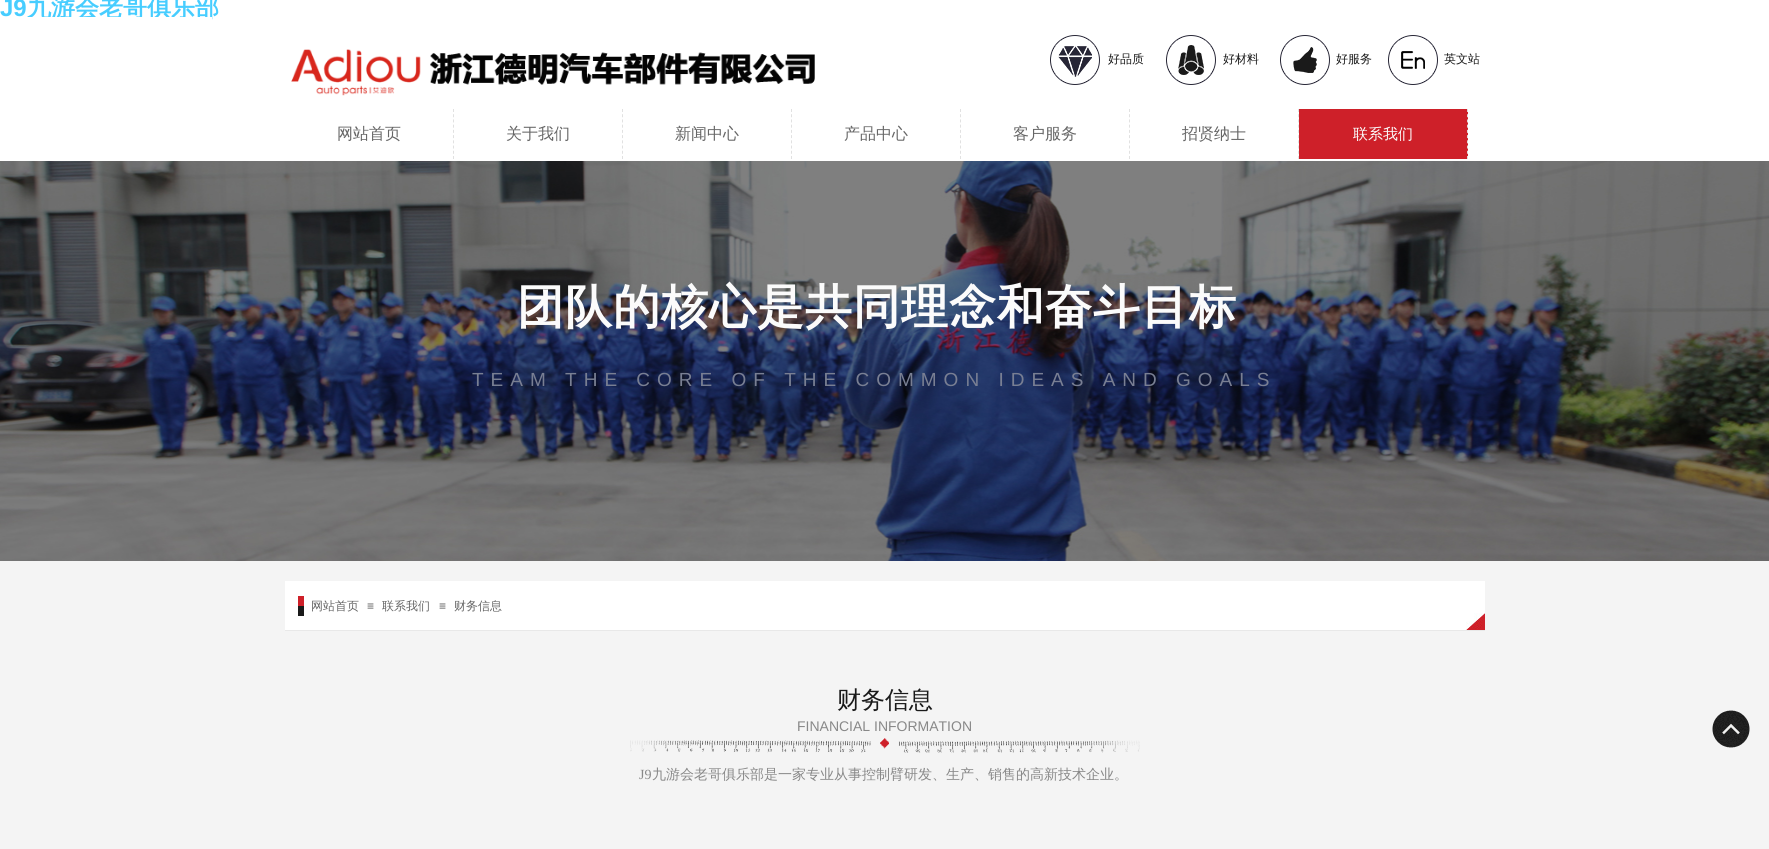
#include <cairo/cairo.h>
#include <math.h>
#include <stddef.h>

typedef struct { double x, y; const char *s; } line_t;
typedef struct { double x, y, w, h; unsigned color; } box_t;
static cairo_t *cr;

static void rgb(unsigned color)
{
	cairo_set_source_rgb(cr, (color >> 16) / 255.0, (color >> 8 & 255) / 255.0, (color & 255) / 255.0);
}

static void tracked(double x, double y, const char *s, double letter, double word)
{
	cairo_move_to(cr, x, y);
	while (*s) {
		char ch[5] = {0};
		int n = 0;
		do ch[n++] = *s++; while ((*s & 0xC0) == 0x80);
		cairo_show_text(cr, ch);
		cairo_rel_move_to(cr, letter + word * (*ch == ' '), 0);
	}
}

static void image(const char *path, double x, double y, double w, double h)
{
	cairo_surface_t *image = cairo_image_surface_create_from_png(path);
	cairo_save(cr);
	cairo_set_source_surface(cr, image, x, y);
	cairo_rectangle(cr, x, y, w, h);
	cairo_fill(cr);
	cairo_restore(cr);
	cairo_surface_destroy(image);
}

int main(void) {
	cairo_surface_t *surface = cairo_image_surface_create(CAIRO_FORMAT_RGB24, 1769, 849);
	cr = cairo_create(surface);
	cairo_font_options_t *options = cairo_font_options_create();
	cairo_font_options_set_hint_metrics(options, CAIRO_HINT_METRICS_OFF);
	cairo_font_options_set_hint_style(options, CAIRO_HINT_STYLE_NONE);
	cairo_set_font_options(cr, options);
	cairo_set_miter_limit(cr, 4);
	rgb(0xffffff);
	cairo_paint(cr);
	image("img/1.png", 291, 49, 524, 47);
	image("img/2.png", 1050, 35, 50, 50);
	image("img/3.png", 1166, 35, 50, 50);
	image("img/4.png", 1280, 35, 50, 50);
	image("img/5.png", 1388, 35, 50, 50);
	cairo_new_path(cr);
	cairo_move_to(cr, 453.5, 109);
	cairo_line_to(cr, 453.5, 159);
	rgb(0xe1e1e1);
	cairo_set_line_width(cr, 1);
	cairo_set_dash(cr, (double[]){3, 2.22}, 2, 0);
	cairo_stroke(cr);
	cairo_new_path(cr);
	cairo_move_to(cr, 622.5, 109);
	cairo_line_to(cr, 622.5, 159);
	cairo_stroke(cr);
	cairo_new_path(cr);
	cairo_move_to(cr, 791.5, 109);
	cairo_line_to(cr, 791.5, 159);
	cairo_stroke(cr);
	cairo_new_path(cr);
	cairo_move_to(cr, 960.5, 109);
	cairo_line_to(cr, 960.5, 159);
	cairo_stroke(cr);
	cairo_new_path(cr);
	cairo_move_to(cr, 1129.5, 109);
	cairo_line_to(cr, 1129.5, 159);
	cairo_stroke(cr);
	cairo_new_path(cr);
	cairo_move_to(cr, 1298.5, 109);
	cairo_line_to(cr, 1298.5, 159);
	cairo_stroke(cr);
	rgb(0xce2029);
	cairo_rectangle(cr, 1299, 109, 169, 50);
	cairo_fill(cr);
	cairo_new_path(cr);
	cairo_move_to(cr, 1467.5, 109);
	cairo_line_to(cr, 1467.5, 159);
	rgb(0xe1e1e1);
	cairo_stroke(cr);
	image("img/6.png", 0, 161, 1769, 400);
	{
		static const box_t items[] = {
			{0, 561, 1769, 288, 0xf4f4f4},
			{285, 630, 1200, 1, 0xe8e8e8},
			{285, 581, 1200, 49, 0xffffff},
		};
		for (size_t i = 0; i < sizeof items / sizeof *items; i++) {
			rgb(items[i].color);
			cairo_rectangle(cr, items[i].x, items[i].y, items[i].w, items[i].h);
			cairo_fill(cr);
		}
	}
	image("img/7.png", 298, 596, 6, 20);
	image("img/8.png", 1466, 613, 19, 17);
	image("img/9.png", 630, 738, 510, 15);
	image("img/10.png", 1712, 710, 38, 38);
	cairo_select_font_face(cr, "Liberation Sans", CAIRO_FONT_SLANT_NORMAL, CAIRO_FONT_WEIGHT_BOLD);
	cairo_set_font_size(cr, 24);
	rgb(0x47cdff);
	cairo_move_to(cr, 0, 16);
	cairo_show_text(cr, "J9");
	cairo_select_font_face(cr, "WenQuanYi Zen Hei", CAIRO_FONT_SLANT_NORMAL, CAIRO_FONT_WEIGHT_BOLD);
	cairo_move_to(cr, 27, 16);
	cairo_show_text(cr, "九游会老哥俱乐部");
	rgb(0xffffff);
	cairo_rectangle(cr, 27, 17, 185, 3);
	cairo_fill(cr);
	cairo_select_font_face(cr, "WenQuanYi Zen Hei Medium", CAIRO_FONT_SLANT_NORMAL, CAIRO_FONT_WEIGHT_NORMAL);
	cairo_set_font_size(cr, 12);
	rgb(0x1a1a1a);
	{
		static const line_t items[] = {
			{1108, 63, "好品质"},
			{1223, 63, "好材料"},
			{1336, 63, "好服务"},
			{1444, 63, "英文站"},
		};
		for (size_t i = 0; i < sizeof items / sizeof *items; i++) {
			cairo_move_to(cr, items[i].x, items[i].y);
			cairo_show_text(cr, items[i].s);
		}
	}
	cairo_set_font_size(cr, 16);
	rgb(0x666666);
	{
		static const line_t items[] = {
			{337, 139, "网站首页"},
			{506, 139, "关于我们"},
			{675, 139, "新闻中心"},
			{844, 139, "产品中心"},
			{1013, 139, "客户服务"},
			{1182, 139, "招贤纳士"},
		};
		for (size_t i = 0; i < sizeof items / sizeof *items; i++) {
			cairo_move_to(cr, items[i].x, items[i].y);
			cairo_show_text(cr, items[i].s);
		}
	}
	cairo_set_font_size(cr, 15);
	rgb(0xfbfbfb);
	cairo_move_to(cr, 1353, 139);
	cairo_show_text(cr, "联系我们");
	cairo_select_font_face(cr, "WenQuanYi Zen Hei", CAIRO_FONT_SLANT_NORMAL, CAIRO_FONT_WEIGHT_BOLD);
	cairo_set_font_size(cr, 47);
	tracked(517, 323, "团队的核心是共同理念和奋斗目标", 1, 0);
	cairo_select_font_face(cr, "Liberation Sans", CAIRO_FONT_SLANT_NORMAL, CAIRO_FONT_WEIGHT_NORMAL);
	cairo_set_font_size(cr, 19);
	rgb(0x797f93);
	tracked(472, 386, "TEAM THE CORE OF THE COMMON IDEAS AND GOALS", 7, 0);
	cairo_select_font_face(cr, "WenQuanYi Zen Hei Medium", CAIRO_FONT_SLANT_NORMAL, CAIRO_FONT_WEIGHT_NORMAL);
	cairo_set_font_size(cr, 12);
	rgb(0x666666);
	cairo_move_to(cr, 311, 610);
	cairo_show_text(cr, "网站首页");
	cairo_select_font_face(cr, "Liberation Sans", CAIRO_FONT_SLANT_NORMAL, CAIRO_FONT_WEIGHT_NORMAL);
	rgb(0x5a5a5a);
	cairo_move_to(cr, 367, 610);
	cairo_show_text(cr, "≡");
	cairo_select_font_face(cr, "WenQuanYi Zen Hei Medium", CAIRO_FONT_SLANT_NORMAL, CAIRO_FONT_WEIGHT_NORMAL);
	rgb(0x666666);
	cairo_move_to(cr, 382, 610);
	cairo_show_text(cr, "联系我们");
	cairo_select_font_face(cr, "Liberation Sans", CAIRO_FONT_SLANT_NORMAL, CAIRO_FONT_WEIGHT_NORMAL);
	rgb(0x5a5a5a);
	cairo_move_to(cr, 439, 610);
	cairo_show_text(cr, "≡");
	cairo_select_font_face(cr, "WenQuanYi Zen Hei Medium", CAIRO_FONT_SLANT_NORMAL, CAIRO_FONT_WEIGHT_NORMAL);
	rgb(0x666666);
	cairo_move_to(cr, 454, 610);
	cairo_show_text(cr, "财务信息");
	cairo_set_font_size(cr, 24);
	rgb(0x1a1a1a);
	cairo_move_to(cr, 837, 708);
	cairo_show_text(cr, "财务信息");
	cairo_select_font_face(cr, "Liberation Sans", CAIRO_FONT_SLANT_NORMAL, CAIRO_FONT_WEIGHT_NORMAL);
	cairo_set_font_size(cr, 14);
	rgb(0x888888);
	cairo_move_to(cr, 797, 731);
	cairo_show_text(cr, "FINANCIAL INFORMATION");
	cairo_select_font_face(cr, "Liberation Serif", CAIRO_FONT_SLANT_NORMAL, CAIRO_FONT_WEIGHT_NORMAL);
	cairo_move_to(cr, 639, 779);
	cairo_show_text(cr, "J9");
	cairo_select_font_face(cr, "WenQuanYi Zen Hei Medium", CAIRO_FONT_SLANT_NORMAL, CAIRO_FONT_WEIGHT_NORMAL);
	cairo_move_to(cr, 652, 779);
	cairo_show_text(cr, "九游会老哥俱乐部是一家专业从事控制臂研发、生产、销售的高新技术企业。");
	cairo_surface_write_to_png(surface, "page.png");
	cairo_font_options_destroy(options);
	cairo_destroy(cr);
	cairo_surface_destroy(surface);
	return 0;
}
